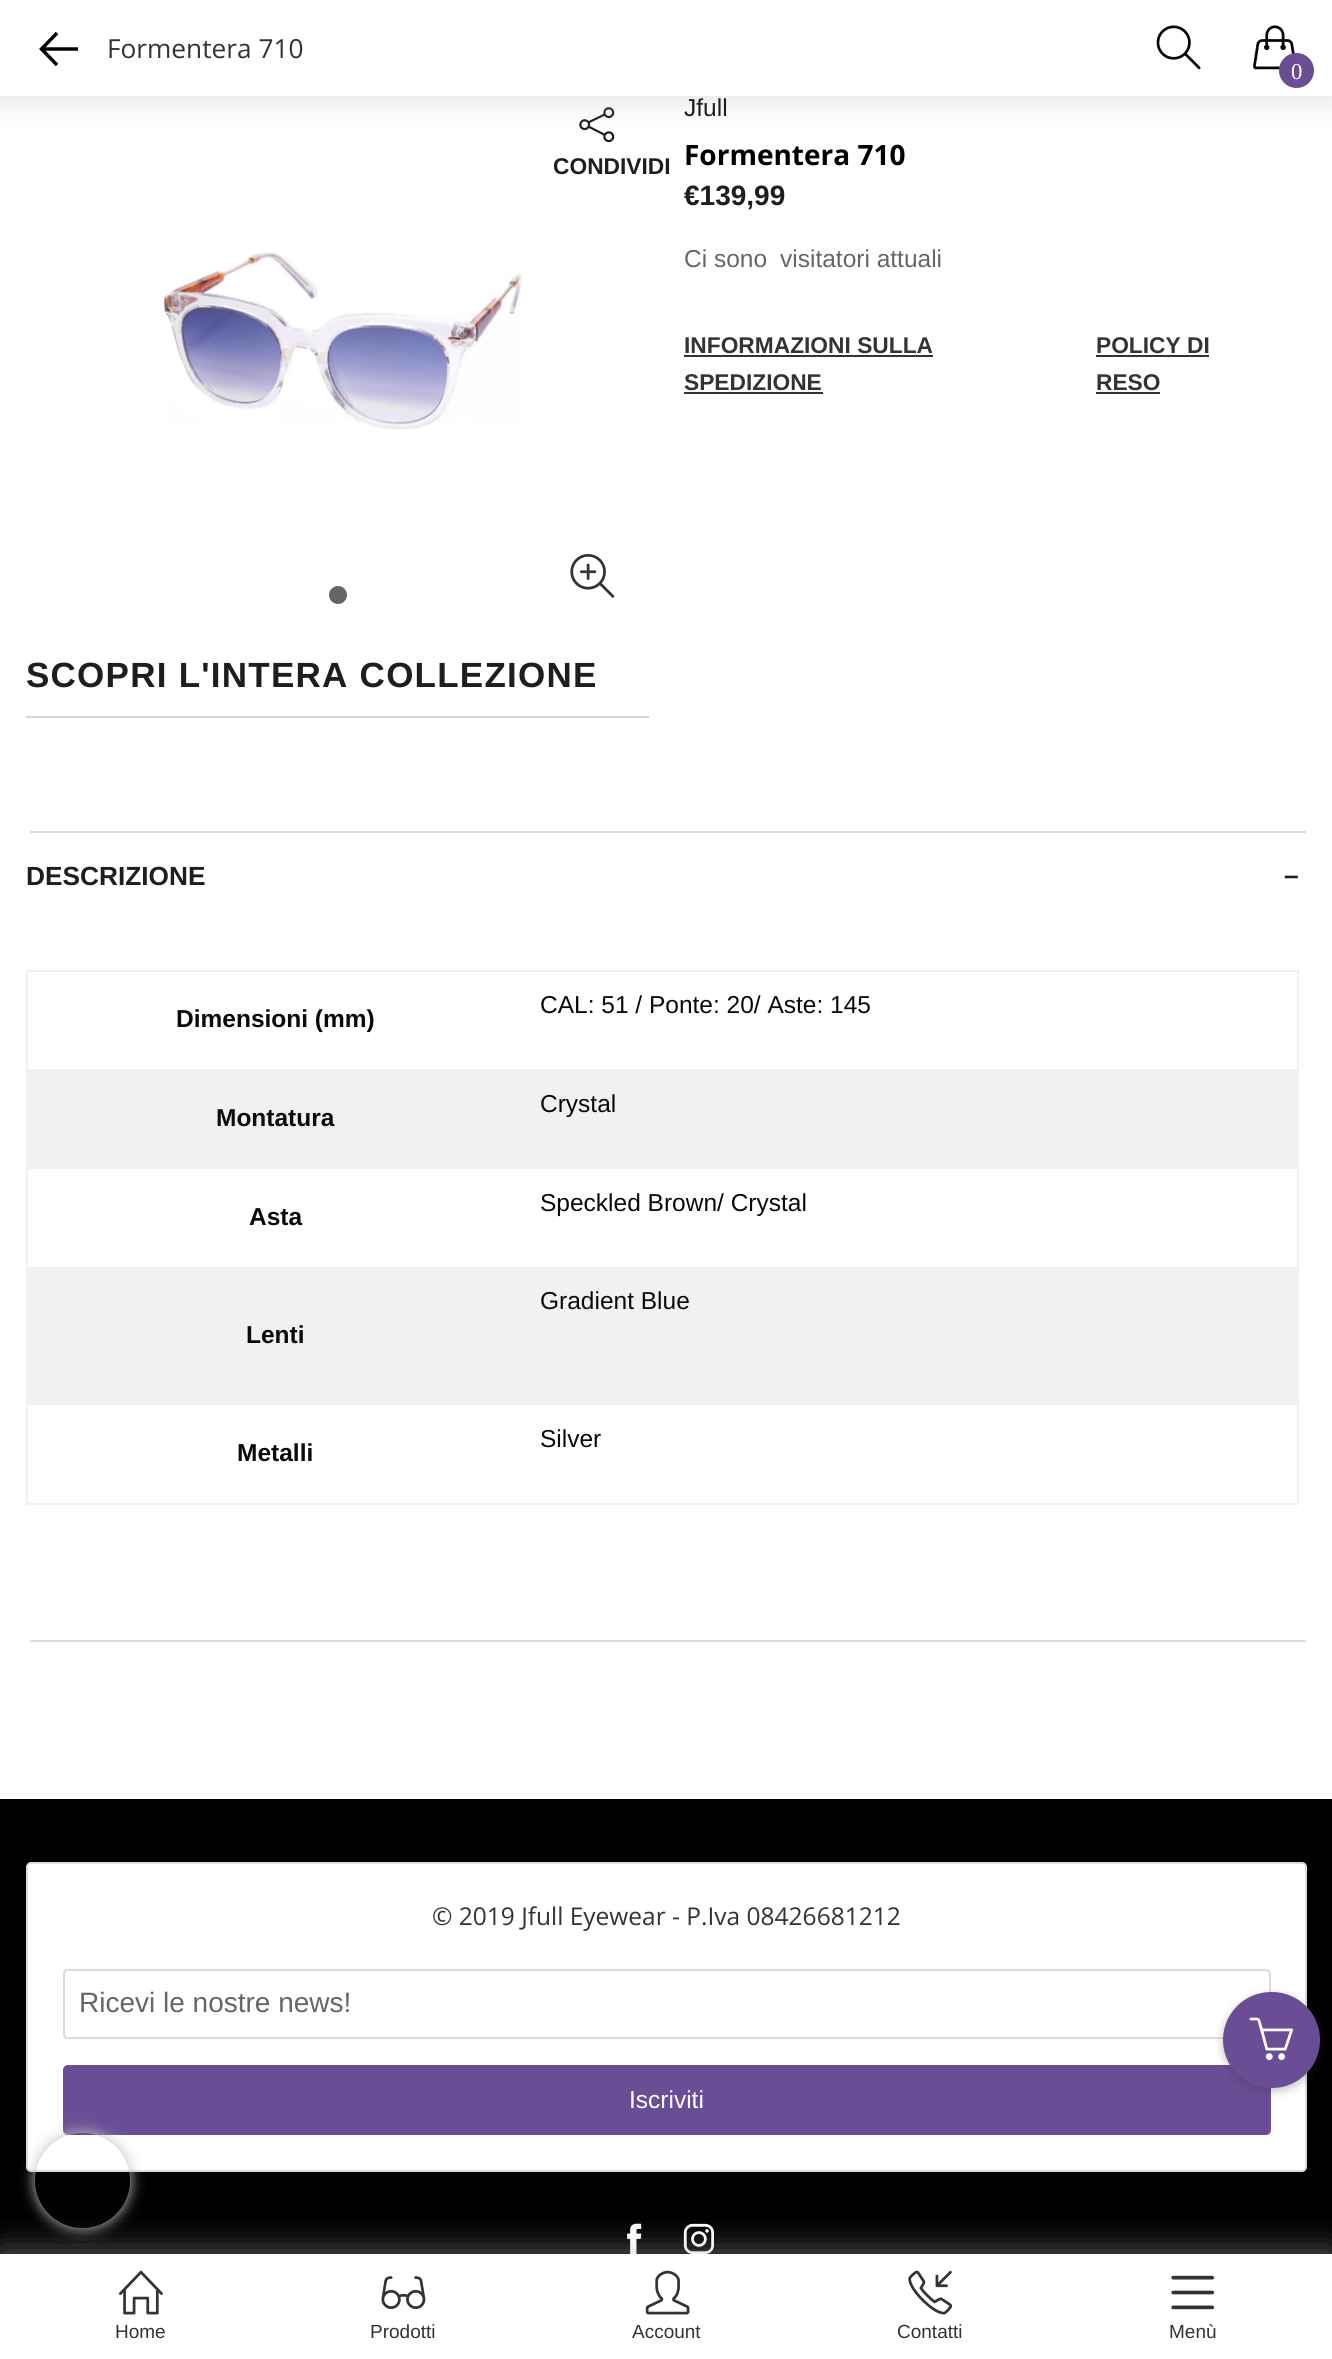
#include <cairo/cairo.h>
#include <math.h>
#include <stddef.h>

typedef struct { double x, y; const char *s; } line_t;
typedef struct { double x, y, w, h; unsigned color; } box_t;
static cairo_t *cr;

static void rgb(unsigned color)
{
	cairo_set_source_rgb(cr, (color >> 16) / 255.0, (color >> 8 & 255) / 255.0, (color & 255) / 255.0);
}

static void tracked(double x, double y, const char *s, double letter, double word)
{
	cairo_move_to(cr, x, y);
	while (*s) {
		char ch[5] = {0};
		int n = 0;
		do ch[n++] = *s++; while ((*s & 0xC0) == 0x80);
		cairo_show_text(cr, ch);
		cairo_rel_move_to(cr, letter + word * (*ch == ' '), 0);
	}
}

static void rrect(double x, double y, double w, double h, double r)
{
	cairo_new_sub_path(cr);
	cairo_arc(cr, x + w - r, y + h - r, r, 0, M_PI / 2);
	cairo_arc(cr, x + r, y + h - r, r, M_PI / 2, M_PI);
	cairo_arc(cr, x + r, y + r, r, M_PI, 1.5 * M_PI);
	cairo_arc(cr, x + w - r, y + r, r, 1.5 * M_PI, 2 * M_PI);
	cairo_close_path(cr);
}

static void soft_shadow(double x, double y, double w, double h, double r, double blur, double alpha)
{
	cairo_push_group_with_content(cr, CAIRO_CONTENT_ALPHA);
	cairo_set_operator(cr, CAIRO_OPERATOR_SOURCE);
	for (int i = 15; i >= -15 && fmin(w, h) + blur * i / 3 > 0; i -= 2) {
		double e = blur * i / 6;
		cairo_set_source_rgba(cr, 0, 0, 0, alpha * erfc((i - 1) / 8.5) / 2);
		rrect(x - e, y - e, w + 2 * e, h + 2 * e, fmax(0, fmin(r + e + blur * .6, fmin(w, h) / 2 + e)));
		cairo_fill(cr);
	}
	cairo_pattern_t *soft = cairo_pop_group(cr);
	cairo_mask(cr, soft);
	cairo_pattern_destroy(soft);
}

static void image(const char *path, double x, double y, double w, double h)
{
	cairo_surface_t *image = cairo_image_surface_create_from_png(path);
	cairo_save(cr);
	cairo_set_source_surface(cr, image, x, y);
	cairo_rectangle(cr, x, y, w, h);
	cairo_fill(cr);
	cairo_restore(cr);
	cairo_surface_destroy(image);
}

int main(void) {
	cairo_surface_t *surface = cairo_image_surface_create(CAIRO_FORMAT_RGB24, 1332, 2359);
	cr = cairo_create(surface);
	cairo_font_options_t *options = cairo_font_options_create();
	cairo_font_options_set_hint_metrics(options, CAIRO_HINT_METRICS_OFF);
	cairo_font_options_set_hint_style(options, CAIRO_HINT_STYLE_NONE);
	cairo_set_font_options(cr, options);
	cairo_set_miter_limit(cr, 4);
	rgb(0xffffff);
	cairo_paint(cr);
	image("img/3.png", 579, 107, 36, 36);
	cairo_save(cr);
	cairo_rectangle(cr, 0, 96, 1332, 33);
	cairo_clip(cr);
	rgb(0xbabfc2);
	soft_shadow(0, 2, 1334, 96, 0, 17.5, 0.5);
	cairo_restore(cr);
	cairo_new_path(cr);
	cairo_move_to(cr, 57, 65);
	cairo_line_to(cr, 41.5, 49);
	cairo_line_to(cr, 57, 33);
	cairo_move_to(cr, 78, 49);
	cairo_line_to(cr, 41.5, 49);
	rgb(0x000000);
	cairo_set_line_width(cr, 3.5);
	cairo_stroke(cr);
	image("img/1.png", 1156, 25, 45, 45);
	image("img/2.png", 1253, 25, 42, 45);
	rgb(0x6a4d94);
	cairo_arc(cr, 1296.5, 70.5, 17.5, 0, 2 * M_PI);
	cairo_fill(cr);
	image("img/4.png", 163, 251, 359, 179);
	rgb(0x646464);
	cairo_arc(cr, 338, 595, 9, 0, 2 * M_PI);
	cairo_fill(cr);
	image("img/5.png", 570, 554, 45, 44);
	{
		static const box_t items[] = {
			{26, 716, 623, 2, 0xd7d7d7},
			{684, 355, 249, 2, 0x333333},
			{684, 392, 139, 2, 0x333333},
			{1096, 355, 113, 2, 0x333333},
			{1096, 392, 64, 2, 0x333333},
			{30, 831, 1276, 2, 0xdcdcdc},
			{30, 1640, 1276, 2, 0xdcdcdc},
			{26, 970, 1273, 2, 0xf1f1f1},
			{1297, 970, 2, 535, 0xf1f1f1},
			{26, 1503, 1273, 2, 0xf1f1f1},
			{26, 970, 2, 535, 0xf1f1f1},
			{28, 1069, 1269, 100, 0xf1f1f1},
			{28, 1267, 1269, 138, 0xf1f1f1},
			{0, 1799, 1332, 455, 0x000000},
		};
		for (size_t i = 0; i < sizeof items / sizeof *items; i++) {
			rgb(items[i].color);
			cairo_rectangle(cr, items[i].x, items[i].y, items[i].w, items[i].h);
			cairo_fill(cr);
		}
	}
	rgb(0xffffff);
	rrect(27, 1863, 1279, 308, 4);
	cairo_fill_preserve(cr);
	rgb(0xdcdcdc);
	cairo_set_line_width(cr, 2);
	cairo_stroke(cr);
	rrect(64, 1970, 1206, 68, 4);
	cairo_stroke(cr);
	rgb(0x6a4d94);
	rrect(63, 2065, 1208, 70, 5);
	cairo_fill(cr);
	rgb(0x323436);
	soft_shadow(1223, 1995, 97, 96, 48, 4.5, 0.3);
	rgb(0x6a4d94);
	rrect(1223, 1992, 97, 96, 48);
	cairo_fill(cr);
	image("img/6.png", 1249, 2017, 45, 43);
	image("img/7.png", 627, 2223, 15, 31);
	image("img/8.png", 683, 2223, 31, 31);
	cairo_save(cr);
	cairo_set_fill_rule(cr, CAIRO_FILL_RULE_EVEN_ODD);
	cairo_new_path(cr);
	cairo_move_to(cr, 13, 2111);
	cairo_line_to(cr, 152, 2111);
	cairo_line_to(cr, 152, 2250);
	cairo_line_to(cr, 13, 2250);
	cairo_close_path(cr);
	cairo_move_to(cr, 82.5, 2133);
	cairo_curve_to(cr, 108.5, 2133, 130, 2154.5, 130, 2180.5);
	cairo_curve_to(cr, 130, 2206.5, 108.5, 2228, 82.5, 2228);
	cairo_curve_to(cr, 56.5, 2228, 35, 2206.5, 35, 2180.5);
	cairo_curve_to(cr, 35, 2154.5, 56.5, 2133, 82.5, 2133);
	cairo_close_path(cr);
	cairo_clip(cr);
	rgb(0xc2c2c2);
	soft_shadow(35, 2133, 95, 95, 47.5, 7, 1);
	cairo_restore(cr);
	rgb(0xbabfc2);
	soft_shadow(0, 2252, 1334, 105, 0, 17.5, 0.5);
	rgb(0xffffff);
	cairo_rectangle(cr, 0, 2254, 1332, 105);
	cairo_fill(cr);
	image("img/9.png", 119, 2270, 44, 45);
	image("img/10.png", 381, 2276, 45, 33);
	image("img/11.png", 645, 2270, 45, 45);
	image("img/12.png", 908, 2270, 45, 45);
	image("img/13.png", 1171, 2275, 43, 35);
	cairo_select_font_face(cr, "Open Sans", CAIRO_FONT_SLANT_NORMAL, CAIRO_FONT_WEIGHT_NORMAL);
	cairo_set_font_size(cr, 26.25);
	rgb(0x333333);
	cairo_move_to(cr, 107, 58);
	cairo_show_text(cr, "Formentera 710");
	cairo_select_font_face(cr, "Liberation Serif", CAIRO_FONT_SLANT_NORMAL, CAIRO_FONT_WEIGHT_NORMAL);
	cairo_set_font_size(cr, 22.75);
	rgb(0xffffff);
	cairo_move_to(cr, 1291, 79);
	cairo_show_text(cr, "0");
	cairo_select_font_face(cr, "Liberation Sans", CAIRO_FONT_SLANT_NORMAL, CAIRO_FONT_WEIGHT_BOLD);
	rgb(0x1e1e1e);
	cairo_move_to(cr, 553, 174);
	cairo_show_text(cr, "CONDIVIDI");
	cairo_set_font_size(cr, 35);
	tracked(26, 687, "SCOPRI L'INTERA COLLEZIONE", 1.25, 0);
	cairo_select_font_face(cr, "Liberation Sans", CAIRO_FONT_SLANT_NORMAL, CAIRO_FONT_WEIGHT_NORMAL);
	cairo_set_font_size(cr, 24.5);
	cairo_move_to(cr, 684, 116);
	cairo_show_text(cr, "Jfull");
	cairo_select_font_face(cr, "Open Sans", CAIRO_FONT_SLANT_NORMAL, CAIRO_FONT_WEIGHT_BOLD);
	cairo_set_font_size(cr, 28);
	rgb(0x000000);
	cairo_move_to(cr, 684, 165);
	cairo_show_text(cr, "Formentera 710");
	cairo_select_font_face(cr, "Liberation Sans", CAIRO_FONT_SLANT_NORMAL, CAIRO_FONT_WEIGHT_BOLD);
	rgb(0x1e1e1e);
	cairo_move_to(cr, 684, 205);
	cairo_show_text(cr, "€139,99");
	cairo_select_font_face(cr, "Liberation Sans", CAIRO_FONT_SLANT_NORMAL, CAIRO_FONT_WEIGHT_NORMAL);
	cairo_set_font_size(cr, 24.5);
	rgb(0x666666);
	cairo_move_to(cr, 684, 267);
	cairo_show_text(cr, "Ci sono");
	cairo_move_to(cr, 780, 267);
	cairo_show_text(cr, "visitatori attuali");
	cairo_select_font_face(cr, "Liberation Sans", CAIRO_FONT_SLANT_NORMAL, CAIRO_FONT_WEIGHT_BOLD);
	cairo_set_font_size(cr, 22.75);
	rgb(0x333333);
	{
		static const line_t items[] = {
			{684, 353, "INFORMAZIONI SULLA"},
			{684, 390, "SPEDIZIONE"},
			{1096, 353, "POLICY DI"},
			{1096, 390, "RESO"},
		};
		for (size_t i = 0; i < sizeof items / sizeof *items; i++) {
			cairo_move_to(cr, items[i].x, items[i].y);
			cairo_show_text(cr, items[i].s);
		}
	}
	cairo_set_font_size(cr, 26.25);
	rgb(0x1e1e1e);
	cairo_move_to(cr, 26, 885);
	cairo_show_text(cr, "DESCRIZIONE");
	cairo_move_to(cr, 1284, 884);
	cairo_show_text(cr, "–");
	cairo_select_font_face(cr, "Liberation Sans", CAIRO_FONT_SLANT_NORMAL, CAIRO_FONT_WEIGHT_NORMAL);
	cairo_set_font_size(cr, 24.5);
	rgb(0x0a0a0a);
	cairo_move_to(cr, 540, 1013);
	cairo_show_text(cr, "CAL: 51 / Ponte: 20/ Aste: 145");
	cairo_select_font_face(cr, "Liberation Sans", CAIRO_FONT_SLANT_NORMAL, CAIRO_FONT_WEIGHT_BOLD);
	cairo_move_to(cr, 176, 1027);
	cairo_show_text(cr, "Dimensioni (mm)");
	cairo_move_to(cr, 216, 1126);
	cairo_show_text(cr, "Montatura");
	cairo_select_font_face(cr, "Liberation Sans", CAIRO_FONT_SLANT_NORMAL, CAIRO_FONT_WEIGHT_NORMAL);
	cairo_move_to(cr, 540, 1112);
	cairo_show_text(cr, "Crystal");
	cairo_select_font_face(cr, "Liberation Sans", CAIRO_FONT_SLANT_NORMAL, CAIRO_FONT_WEIGHT_BOLD);
	cairo_move_to(cr, 249, 1225);
	cairo_show_text(cr, "Asta");
	cairo_select_font_face(cr, "Liberation Sans", CAIRO_FONT_SLANT_NORMAL, CAIRO_FONT_WEIGHT_NORMAL);
	cairo_move_to(cr, 540, 1211);
	cairo_show_text(cr, "Speckled Brown/ Crystal");
	cairo_move_to(cr, 540, 1309);
	cairo_show_text(cr, "Gradient Blue");
	cairo_select_font_face(cr, "Liberation Sans", CAIRO_FONT_SLANT_NORMAL, CAIRO_FONT_WEIGHT_BOLD);
	cairo_move_to(cr, 246, 1343);
	cairo_show_text(cr, "Lenti");
	cairo_select_font_face(cr, "Liberation Sans", CAIRO_FONT_SLANT_NORMAL, CAIRO_FONT_WEIGHT_NORMAL);
	cairo_move_to(cr, 540, 1447);
	cairo_show_text(cr, "Silver");
	cairo_select_font_face(cr, "Liberation Sans", CAIRO_FONT_SLANT_NORMAL, CAIRO_FONT_WEIGHT_BOLD);
	cairo_move_to(cr, 237, 1461);
	cairo_show_text(cr, "Metalli");
	cairo_select_font_face(cr, "Open Sans", CAIRO_FONT_SLANT_NORMAL, CAIRO_FONT_WEIGHT_NORMAL);
	rgb(0x333333);
	cairo_move_to(cr, 432, 1925);
	cairo_show_text(cr, "© 2019 Jfull Eyewear - P.Iva 08426681212");
	cairo_select_font_face(cr, "Liberation Sans", CAIRO_FONT_SLANT_NORMAL, CAIRO_FONT_WEIGHT_NORMAL);
	cairo_set_font_size(cr, 28);
	rgb(0x666666);
	cairo_move_to(cr, 79, 2012);
	cairo_show_text(cr, "Ricevi le nostre news!");
	cairo_set_font_size(cr, 24.5);
	rgb(0xffffff);
	cairo_move_to(cr, 629, 2108);
	cairo_show_text(cr, "Iscriviti");
	cairo_set_font_size(cr, 19);
	rgb(0x333333);
	{
		static const line_t items[] = {
			{115, 2338, "Home"},
			{370, 2338, "Prodotti"},
			{632, 2338, "Account"},
			{897, 2338, "Contatti"},
			{1169, 2338, "Menù"},
		};
		for (size_t i = 0; i < sizeof items / sizeof *items; i++) {
			cairo_move_to(cr, items[i].x, items[i].y);
			cairo_show_text(cr, items[i].s);
		}
	}
	cairo_surface_write_to_png(surface, "page.png");
	cairo_font_options_destroy(options);
	cairo_destroy(cr);
	cairo_surface_destroy(surface);
	return 0;
}
